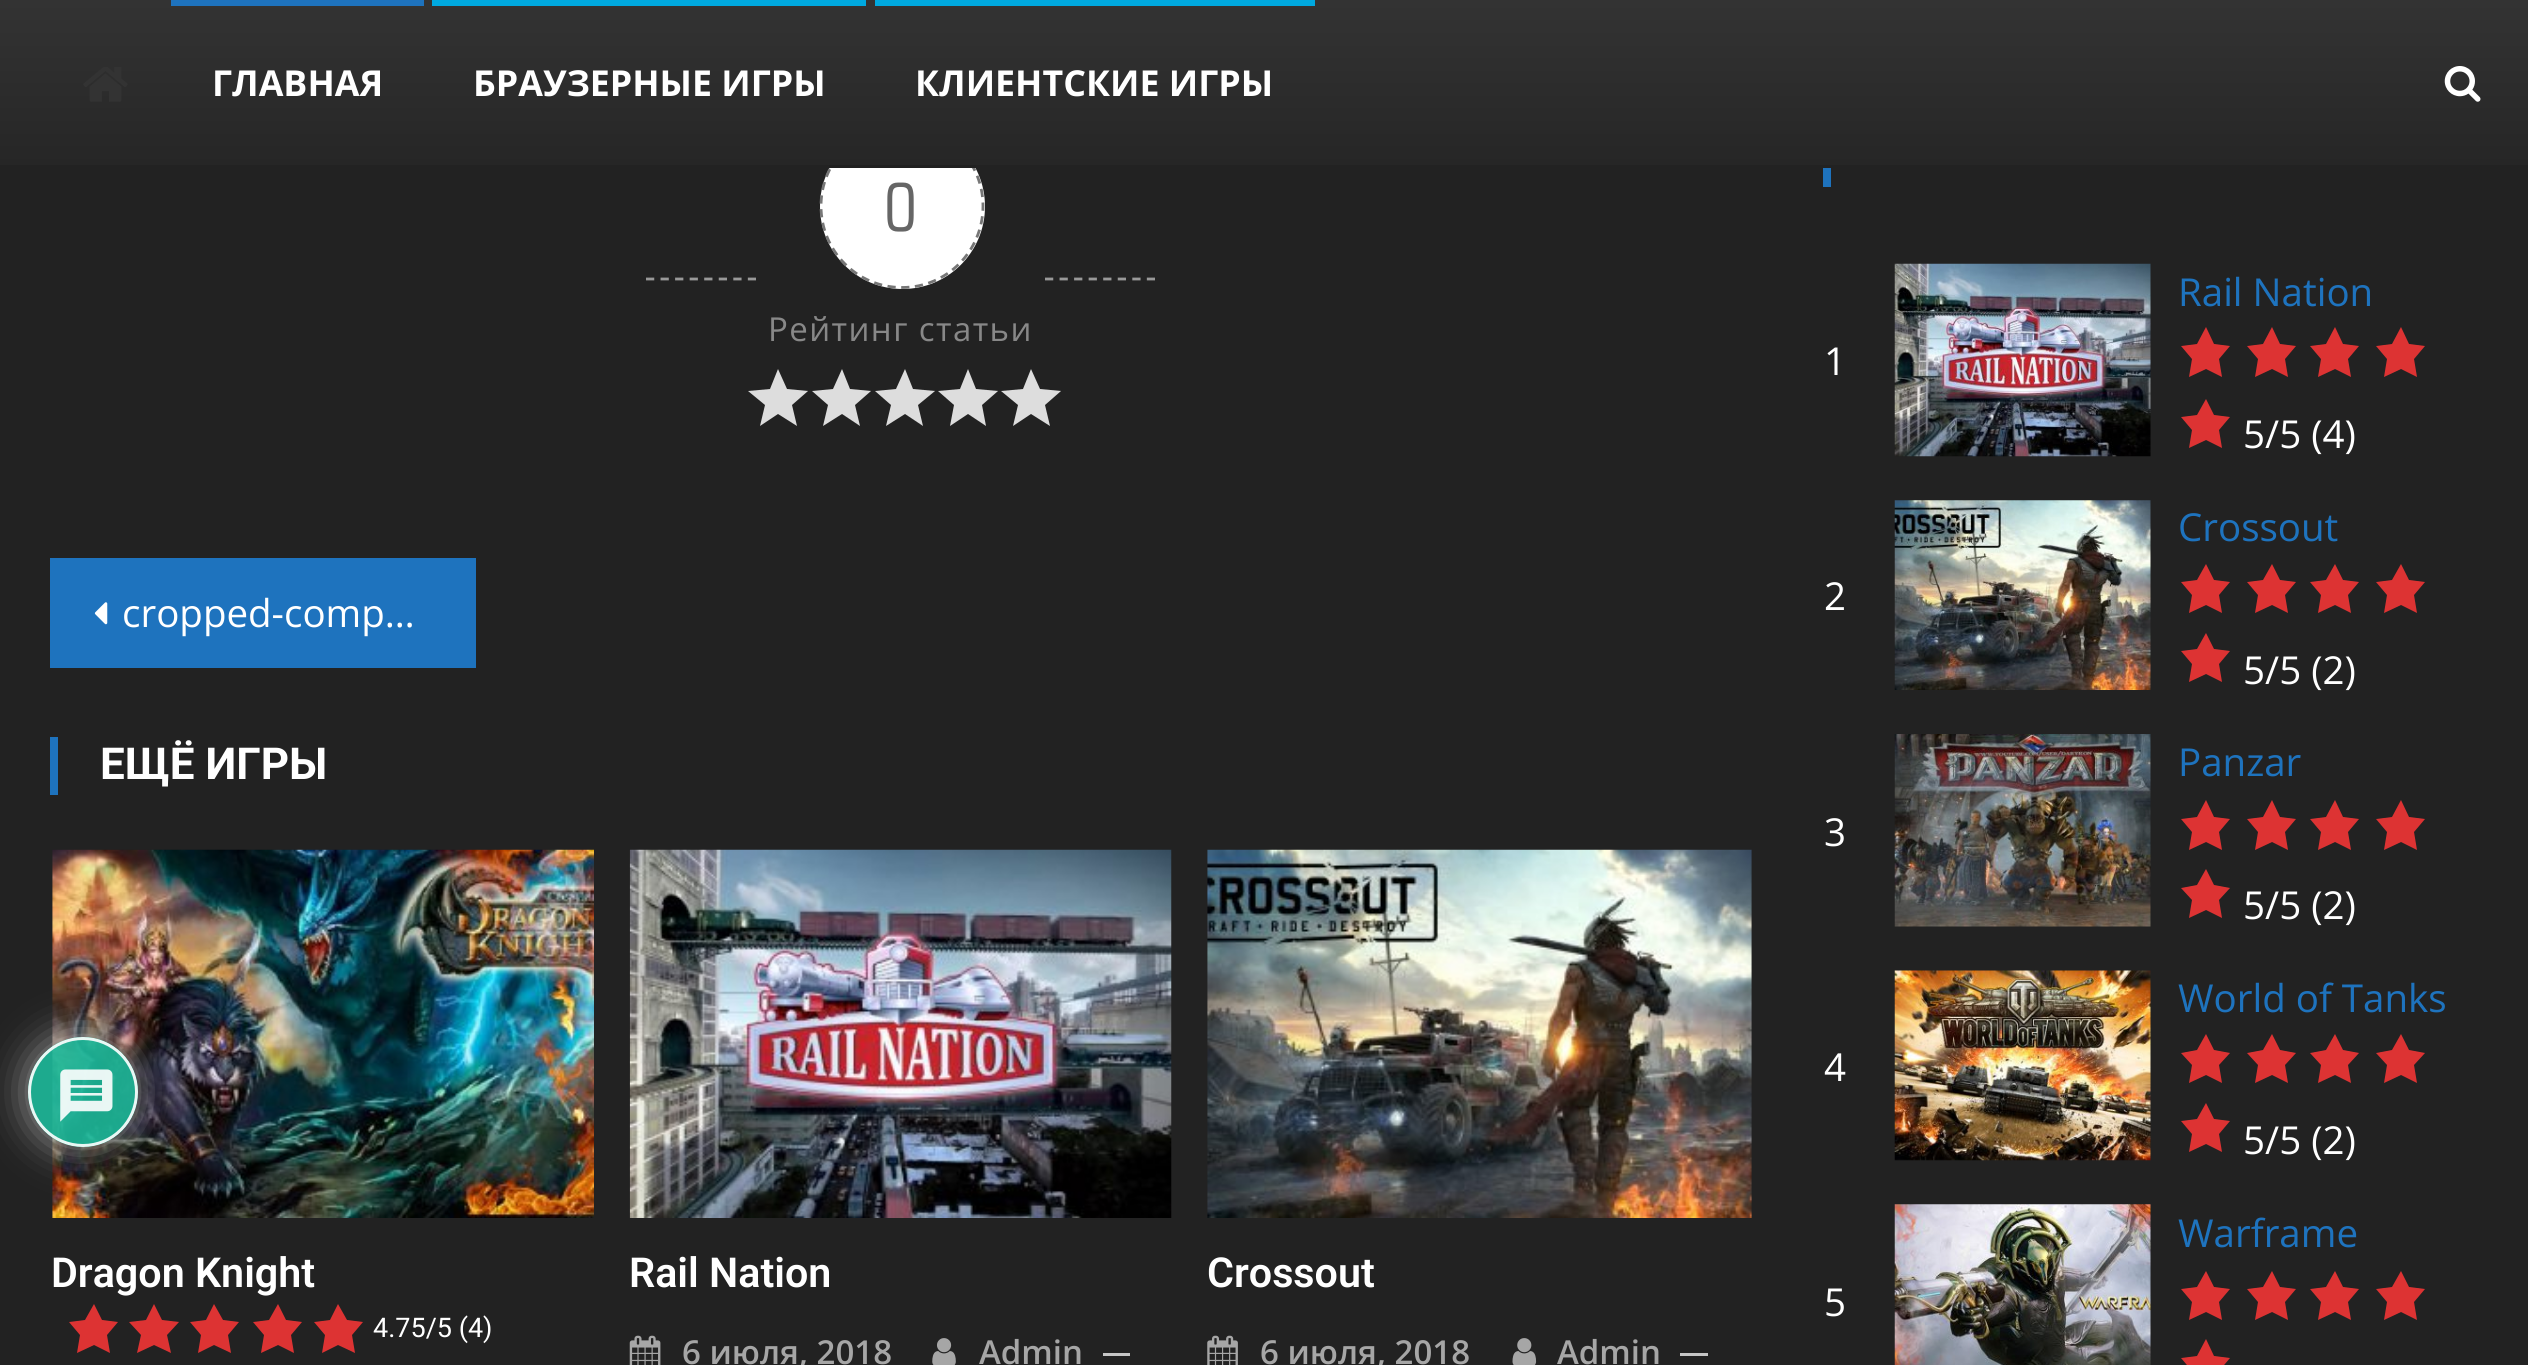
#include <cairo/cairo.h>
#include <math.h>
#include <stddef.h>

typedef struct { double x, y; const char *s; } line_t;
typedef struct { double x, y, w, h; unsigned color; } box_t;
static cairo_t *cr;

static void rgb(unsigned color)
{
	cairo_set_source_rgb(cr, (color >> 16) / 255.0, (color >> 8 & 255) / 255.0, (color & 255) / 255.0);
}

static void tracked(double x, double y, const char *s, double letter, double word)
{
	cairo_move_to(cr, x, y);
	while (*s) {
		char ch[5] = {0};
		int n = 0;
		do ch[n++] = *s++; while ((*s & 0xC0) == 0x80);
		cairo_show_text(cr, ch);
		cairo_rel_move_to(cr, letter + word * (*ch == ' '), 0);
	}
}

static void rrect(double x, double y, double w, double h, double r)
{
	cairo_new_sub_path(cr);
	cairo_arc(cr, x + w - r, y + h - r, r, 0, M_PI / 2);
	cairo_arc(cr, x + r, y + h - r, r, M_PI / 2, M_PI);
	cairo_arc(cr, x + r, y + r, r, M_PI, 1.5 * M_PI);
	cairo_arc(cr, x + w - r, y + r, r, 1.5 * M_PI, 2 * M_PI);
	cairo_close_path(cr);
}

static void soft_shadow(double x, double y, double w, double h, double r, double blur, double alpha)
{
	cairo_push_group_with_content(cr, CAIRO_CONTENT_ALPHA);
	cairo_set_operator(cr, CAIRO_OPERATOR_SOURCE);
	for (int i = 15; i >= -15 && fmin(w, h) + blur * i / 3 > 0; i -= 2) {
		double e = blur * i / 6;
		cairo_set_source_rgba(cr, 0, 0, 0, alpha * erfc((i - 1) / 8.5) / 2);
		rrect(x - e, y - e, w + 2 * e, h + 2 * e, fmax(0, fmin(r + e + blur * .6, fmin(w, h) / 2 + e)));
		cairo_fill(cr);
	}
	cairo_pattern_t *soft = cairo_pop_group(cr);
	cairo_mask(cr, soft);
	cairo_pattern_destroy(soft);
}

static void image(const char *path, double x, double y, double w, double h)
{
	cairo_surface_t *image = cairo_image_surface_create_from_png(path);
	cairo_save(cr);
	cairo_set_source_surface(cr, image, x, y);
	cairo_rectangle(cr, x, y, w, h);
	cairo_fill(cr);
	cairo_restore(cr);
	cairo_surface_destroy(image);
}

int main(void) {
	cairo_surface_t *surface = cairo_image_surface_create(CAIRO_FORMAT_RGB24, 2528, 1365);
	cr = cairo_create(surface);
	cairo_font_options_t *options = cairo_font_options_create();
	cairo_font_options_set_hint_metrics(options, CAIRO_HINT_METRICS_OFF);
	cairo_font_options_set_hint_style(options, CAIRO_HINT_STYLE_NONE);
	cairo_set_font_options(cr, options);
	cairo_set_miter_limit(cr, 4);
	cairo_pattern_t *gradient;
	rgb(0x222222);
	cairo_paint(cr);
	rgb(0xffffff);
	cairo_arc(cr, 902.5, 206.5, 82.5, 0, 2 * M_PI);
	cairo_fill(cr);
	cairo_new_path(cr);
	cairo_move_to(cr, 902, 125);
	cairo_curve_to(cr, 947, 125, 983, 161.5, 983, 206);
	cairo_curve_to(cr, 983, 251, 947, 287.5, 902, 287.5);
	cairo_curve_to(cr, 857, 287.5, 821, 251, 821, 206);
	cairo_curve_to(cr, 821, 161.5, 857, 125, 902, 125);
	cairo_close_path(cr);
	rgb(0x777777);
	cairo_set_line_width(cr, 2.8);
	cairo_set_dash(cr, (double[]){8.25, 5.5}, 2, 0);
	cairo_stroke(cr);
	gradient = cairo_pattern_create_linear(1265, 0, 1265, 165);
	cairo_pattern_add_color_stop_rgba(gradient, 0.01, 0.2, 0.2, 0.2, 1);
	cairo_pattern_add_color_stop_rgba(gradient, 1, 0.149, 0.149, 0.149, 1);
	cairo_set_source(cr, gradient);
	cairo_pattern_destroy(gradient);
	cairo_rectangle(cr, 0, 0, 2528, 165);
	cairo_fill(cr);
	rgb(0x202020);
	cairo_rectangle(cr, 829, 165, 147, 3);
	cairo_fill(cr);
	image("img/1.png", 83, 67, 45, 35);
	{
		static const box_t items[] = {
			{171, 0, 253, 6, 0x1e73be},
			{432, 0, 434, 6, 0x00a9e0},
			{875, 0, 440, 6, 0x00a9e0},
		};
		for (size_t i = 0; i < sizeof items / sizeof *items; i++) {
			rgb(items[i].color);
			cairo_rectangle(cr, items[i].x, items[i].y, items[i].w, items[i].h);
			cairo_fill(cr);
		}
	}
	image("img/2.png", 2444, 66, 37, 36);
	cairo_new_path(cr);
	cairo_move_to(cr, 646, 279);
	cairo_line_to(cr, 756, 279);
	rgb(0x999999);
	cairo_set_dash(cr, (double[]){8.25, 6.3}, 2, 0);
	cairo_stroke(cr);
	rgb(0xdddddd);
	cairo_new_path(cr);
	cairo_move_to(cr, 778, 414);
	cairo_line_to(cr, 797, 426);
	cairo_line_to(cr, 792, 405);
	cairo_line_to(cr, 808, 391);
	cairo_line_to(cr, 787, 389);
	cairo_line_to(cr, 778, 369);
	cairo_line_to(cr, 770, 389);
	cairo_line_to(cr, 748, 391);
	cairo_line_to(cr, 765, 405);
	cairo_line_to(cr, 760, 426);
	cairo_close_path(cr);
	cairo_fill(cr);
	cairo_new_path(cr);
	cairo_move_to(cr, 842, 414);
	cairo_line_to(cr, 860, 426);
	cairo_line_to(cr, 855, 405);
	cairo_line_to(cr, 871, 391);
	cairo_line_to(cr, 850, 389);
	cairo_line_to(cr, 842, 369);
	cairo_line_to(cr, 833, 389);
	cairo_line_to(cr, 812, 391);
	cairo_line_to(cr, 828, 405);
	cairo_line_to(cr, 823, 426);
	cairo_close_path(cr);
	cairo_fill(cr);
	cairo_new_path(cr);
	cairo_move_to(cr, 905, 414);
	cairo_line_to(cr, 923, 426);
	cairo_line_to(cr, 918, 405);
	cairo_line_to(cr, 935, 391);
	cairo_line_to(cr, 913, 389);
	cairo_line_to(cr, 905, 369);
	cairo_line_to(cr, 896, 389);
	cairo_line_to(cr, 875, 391);
	cairo_line_to(cr, 891, 405);
	cairo_line_to(cr, 886, 426);
	cairo_close_path(cr);
	cairo_fill(cr);
	cairo_new_path(cr);
	cairo_move_to(cr, 968, 414);
	cairo_line_to(cr, 986, 426);
	cairo_line_to(cr, 982, 405);
	cairo_line_to(cr, 998, 391);
	cairo_line_to(cr, 976, 389);
	cairo_line_to(cr, 968, 369);
	cairo_line_to(cr, 960, 389);
	cairo_line_to(cr, 938, 391);
	cairo_line_to(cr, 954, 405);
	cairo_line_to(cr, 950, 426);
	cairo_close_path(cr);
	cairo_fill(cr);
	cairo_new_path(cr);
	cairo_move_to(cr, 1031, 414);
	cairo_line_to(cr, 1050, 426);
	cairo_line_to(cr, 1045, 405);
	cairo_line_to(cr, 1061, 391);
	cairo_line_to(cr, 1040, 389);
	cairo_line_to(cr, 1031, 369);
	cairo_line_to(cr, 1023, 389);
	cairo_line_to(cr, 1001, 391);
	cairo_line_to(cr, 1018, 405);
	cairo_line_to(cr, 1013, 426);
	cairo_close_path(cr);
	cairo_fill(cr);
	cairo_new_path(cr);
	cairo_move_to(cr, 1045, 279);
	cairo_line_to(cr, 1155, 279);
	rgb(0x999999);
	cairo_stroke(cr);
	rgb(0x1e73be);
	cairo_rectangle(cr, 50, 558, 426, 110);
	cairo_fill(cr);
	image("img/3.png", 94, 602, 14, 23);
	cairo_rectangle(cr, 50, 737, 8, 58);
	cairo_fill(cr);
	image("img/4.png", 52, 849, 542, 369);
	rgb(0xdd3333);
	cairo_new_path(cr);
	cairo_move_to(cr, 94, 1304);
	cairo_line_to(cr, 102, 1320);
	cairo_line_to(cr, 118, 1322);
	cairo_line_to(cr, 107, 1335);
	cairo_line_to(cr, 110, 1353);
	cairo_line_to(cr, 94, 1345);
	cairo_line_to(cr, 77, 1353);
	cairo_line_to(cr, 80, 1335);
	cairo_line_to(cr, 69, 1322);
	cairo_line_to(cr, 85, 1320);
	cairo_close_path(cr);
	cairo_fill(cr);
	cairo_new_path(cr);
	cairo_move_to(cr, 154, 1304);
	cairo_line_to(cr, 162, 1320);
	cairo_line_to(cr, 179, 1322);
	cairo_line_to(cr, 167, 1335);
	cairo_line_to(cr, 171, 1353);
	cairo_line_to(cr, 154, 1345);
	cairo_line_to(cr, 137, 1353);
	cairo_line_to(cr, 141, 1335);
	cairo_line_to(cr, 129, 1322);
	cairo_line_to(cr, 146, 1320);
	cairo_close_path(cr);
	cairo_fill(cr);
	cairo_new_path(cr);
	cairo_move_to(cr, 214, 1304);
	cairo_line_to(cr, 223, 1320);
	cairo_line_to(cr, 239, 1322);
	cairo_line_to(cr, 228, 1335);
	cairo_line_to(cr, 231, 1353);
	cairo_line_to(cr, 214, 1345);
	cairo_line_to(cr, 198, 1353);
	cairo_line_to(cr, 201, 1335);
	cairo_line_to(cr, 190, 1322);
	cairo_line_to(cr, 206, 1320);
	cairo_close_path(cr);
	cairo_fill(cr);
	cairo_new_path(cr);
	cairo_move_to(cr, 278, 1304);
	cairo_line_to(cr, 286, 1320);
	cairo_line_to(cr, 302, 1322);
	cairo_line_to(cr, 291, 1335);
	cairo_line_to(cr, 294, 1353);
	cairo_line_to(cr, 278, 1345);
	cairo_line_to(cr, 261, 1353);
	cairo_line_to(cr, 264, 1335);
	cairo_line_to(cr, 253, 1322);
	cairo_line_to(cr, 269, 1320);
	cairo_close_path(cr);
	cairo_fill(cr);
	cairo_new_path(cr);
	cairo_move_to(cr, 338, 1304);
	cairo_line_to(cr, 347, 1320);
	cairo_line_to(cr, 363, 1322);
	cairo_line_to(cr, 352, 1335);
	cairo_line_to(cr, 355, 1353);
	cairo_line_to(cr, 338, 1345);
	cairo_line_to(cr, 322, 1353);
	cairo_line_to(cr, 325, 1335);
	cairo_line_to(cr, 314, 1322);
	cairo_line_to(cr, 330, 1320);
	cairo_close_path(cr);
	cairo_fill(cr);
	image("img/5.png", 629, 849, 543, 369);
	image("img/6.png", 629, 1335, 32, 30);
	image("img/7.png", 932, 1338, 24, 27);
	rgb(0xc6c6c6);
	cairo_rectangle(cr, 1103, 1353, 27, 3);
	cairo_fill(cr);
	image("img/8.png", 1207, 849, 545, 369);
	image("img/9.png", 1207, 1335, 31, 30);
	image("img/10.png", 1512, 1338, 25, 27);
	cairo_rectangle(cr, 1680, 1353, 28, 3);
	cairo_fill(cr);
	rgb(0x1e73be);
	cairo_rectangle(cr, 1823, 168, 8, 19);
	cairo_fill(cr);
	image("img/11.png", 1894, 263, 257, 194);
	rgb(0xdd3333);
	cairo_new_path(cr);
	cairo_move_to(cr, 2206, 327);
	cairo_line_to(cr, 2214, 344);
	cairo_line_to(cr, 2230, 346);
	cairo_line_to(cr, 2219, 359);
	cairo_line_to(cr, 2222, 377);
	cairo_line_to(cr, 2206, 369);
	cairo_line_to(cr, 2189, 377);
	cairo_line_to(cr, 2192, 359);
	cairo_line_to(cr, 2181, 346);
	cairo_line_to(cr, 2197, 344);
	cairo_close_path(cr);
	cairo_fill(cr);
	cairo_new_path(cr);
	cairo_move_to(cr, 2272, 327);
	cairo_line_to(cr, 2280, 344);
	cairo_line_to(cr, 2296, 346);
	cairo_line_to(cr, 2285, 359);
	cairo_line_to(cr, 2288, 377);
	cairo_line_to(cr, 2272, 369);
	cairo_line_to(cr, 2255, 377);
	cairo_line_to(cr, 2258, 359);
	cairo_line_to(cr, 2247, 346);
	cairo_line_to(cr, 2263, 344);
	cairo_close_path(cr);
	cairo_fill(cr);
	cairo_new_path(cr);
	cairo_move_to(cr, 2335, 327);
	cairo_line_to(cr, 2343, 344);
	cairo_line_to(cr, 2359, 346);
	cairo_line_to(cr, 2348, 359);
	cairo_line_to(cr, 2351, 377);
	cairo_line_to(cr, 2335, 369);
	cairo_line_to(cr, 2318, 377);
	cairo_line_to(cr, 2321, 359);
	cairo_line_to(cr, 2310, 346);
	cairo_line_to(cr, 2326, 344);
	cairo_close_path(cr);
	cairo_fill(cr);
	cairo_new_path(cr);
	cairo_move_to(cr, 2401, 327);
	cairo_line_to(cr, 2409, 344);
	cairo_line_to(cr, 2425, 346);
	cairo_line_to(cr, 2414, 359);
	cairo_line_to(cr, 2417, 377);
	cairo_line_to(cr, 2401, 369);
	cairo_line_to(cr, 2384, 377);
	cairo_line_to(cr, 2387, 359);
	cairo_line_to(cr, 2376, 346);
	cairo_line_to(cr, 2392, 344);
	cairo_close_path(cr);
	cairo_fill(cr);
	cairo_new_path(cr);
	cairo_move_to(cr, 2206, 399);
	cairo_line_to(cr, 2214, 415);
	cairo_line_to(cr, 2230, 417);
	cairo_line_to(cr, 2219, 430);
	cairo_line_to(cr, 2222, 448);
	cairo_line_to(cr, 2206, 440);
	cairo_line_to(cr, 2189, 448);
	cairo_line_to(cr, 2192, 430);
	cairo_line_to(cr, 2181, 417);
	cairo_line_to(cr, 2197, 415);
	cairo_close_path(cr);
	cairo_fill(cr);
	image("img/12.png", 1894, 500, 257, 190);
	cairo_new_path(cr);
	cairo_move_to(cr, 2206, 564);
	cairo_line_to(cr, 2214, 580);
	cairo_line_to(cr, 2230, 582);
	cairo_line_to(cr, 2219, 595);
	cairo_line_to(cr, 2222, 613);
	cairo_line_to(cr, 2206, 605);
	cairo_line_to(cr, 2189, 613);
	cairo_line_to(cr, 2192, 595);
	cairo_line_to(cr, 2181, 582);
	cairo_line_to(cr, 2197, 580);
	cairo_close_path(cr);
	cairo_fill(cr);
	cairo_new_path(cr);
	cairo_move_to(cr, 2272, 564);
	cairo_line_to(cr, 2280, 580);
	cairo_line_to(cr, 2296, 582);
	cairo_line_to(cr, 2285, 595);
	cairo_line_to(cr, 2288, 613);
	cairo_line_to(cr, 2272, 605);
	cairo_line_to(cr, 2255, 613);
	cairo_line_to(cr, 2258, 595);
	cairo_line_to(cr, 2247, 582);
	cairo_line_to(cr, 2263, 580);
	cairo_close_path(cr);
	cairo_fill(cr);
	cairo_new_path(cr);
	cairo_move_to(cr, 2335, 564);
	cairo_line_to(cr, 2343, 580);
	cairo_line_to(cr, 2359, 582);
	cairo_line_to(cr, 2348, 595);
	cairo_line_to(cr, 2351, 613);
	cairo_line_to(cr, 2335, 605);
	cairo_line_to(cr, 2318, 613);
	cairo_line_to(cr, 2321, 595);
	cairo_line_to(cr, 2310, 582);
	cairo_line_to(cr, 2326, 580);
	cairo_close_path(cr);
	cairo_fill(cr);
	cairo_new_path(cr);
	cairo_move_to(cr, 2401, 564);
	cairo_line_to(cr, 2409, 580);
	cairo_line_to(cr, 2425, 582);
	cairo_line_to(cr, 2414, 595);
	cairo_line_to(cr, 2417, 613);
	cairo_line_to(cr, 2401, 605);
	cairo_line_to(cr, 2384, 613);
	cairo_line_to(cr, 2387, 595);
	cairo_line_to(cr, 2376, 582);
	cairo_line_to(cr, 2392, 580);
	cairo_close_path(cr);
	cairo_fill(cr);
	cairo_new_path(cr);
	cairo_move_to(cr, 2206, 633);
	cairo_line_to(cr, 2214, 649);
	cairo_line_to(cr, 2230, 651);
	cairo_line_to(cr, 2219, 664);
	cairo_line_to(cr, 2222, 682);
	cairo_line_to(cr, 2206, 674);
	cairo_line_to(cr, 2189, 682);
	cairo_line_to(cr, 2192, 664);
	cairo_line_to(cr, 2181, 651);
	cairo_line_to(cr, 2197, 649);
	cairo_close_path(cr);
	cairo_fill(cr);
	image("img/13.png", 1894, 734, 257, 193);
	cairo_new_path(cr);
	cairo_move_to(cr, 2206, 800);
	cairo_line_to(cr, 2214, 817);
	cairo_line_to(cr, 2230, 819);
	cairo_line_to(cr, 2219, 832);
	cairo_line_to(cr, 2222, 850);
	cairo_line_to(cr, 2206, 842);
	cairo_line_to(cr, 2189, 850);
	cairo_line_to(cr, 2192, 832);
	cairo_line_to(cr, 2181, 819);
	cairo_line_to(cr, 2197, 817);
	cairo_close_path(cr);
	cairo_fill(cr);
	cairo_new_path(cr);
	cairo_move_to(cr, 2272, 800);
	cairo_line_to(cr, 2280, 817);
	cairo_line_to(cr, 2296, 819);
	cairo_line_to(cr, 2285, 832);
	cairo_line_to(cr, 2288, 850);
	cairo_line_to(cr, 2272, 842);
	cairo_line_to(cr, 2255, 850);
	cairo_line_to(cr, 2258, 832);
	cairo_line_to(cr, 2247, 819);
	cairo_line_to(cr, 2263, 817);
	cairo_close_path(cr);
	cairo_fill(cr);
	cairo_new_path(cr);
	cairo_move_to(cr, 2335, 800);
	cairo_line_to(cr, 2343, 817);
	cairo_line_to(cr, 2359, 819);
	cairo_line_to(cr, 2348, 832);
	cairo_line_to(cr, 2351, 850);
	cairo_line_to(cr, 2335, 842);
	cairo_line_to(cr, 2318, 850);
	cairo_line_to(cr, 2321, 832);
	cairo_line_to(cr, 2310, 819);
	cairo_line_to(cr, 2326, 817);
	cairo_close_path(cr);
	cairo_fill(cr);
	cairo_new_path(cr);
	cairo_move_to(cr, 2401, 800);
	cairo_line_to(cr, 2409, 817);
	cairo_line_to(cr, 2425, 819);
	cairo_line_to(cr, 2414, 832);
	cairo_line_to(cr, 2417, 850);
	cairo_line_to(cr, 2401, 842);
	cairo_line_to(cr, 2384, 850);
	cairo_line_to(cr, 2387, 832);
	cairo_line_to(cr, 2376, 819);
	cairo_line_to(cr, 2392, 817);
	cairo_close_path(cr);
	cairo_fill(cr);
	cairo_new_path(cr);
	cairo_move_to(cr, 2206, 869);
	cairo_line_to(cr, 2214, 885);
	cairo_line_to(cr, 2230, 888);
	cairo_line_to(cr, 2219, 900);
	cairo_line_to(cr, 2222, 918);
	cairo_line_to(cr, 2206, 910);
	cairo_line_to(cr, 2189, 918);
	cairo_line_to(cr, 2192, 900);
	cairo_line_to(cr, 2181, 888);
	cairo_line_to(cr, 2197, 885);
	cairo_close_path(cr);
	cairo_fill(cr);
	image("img/14.png", 1894, 970, 257, 191);
	cairo_new_path(cr);
	cairo_move_to(cr, 2206, 1034);
	cairo_line_to(cr, 2214, 1050);
	cairo_line_to(cr, 2230, 1053);
	cairo_line_to(cr, 2219, 1065);
	cairo_line_to(cr, 2222, 1083);
	cairo_line_to(cr, 2206, 1075);
	cairo_line_to(cr, 2189, 1083);
	cairo_line_to(cr, 2192, 1065);
	cairo_line_to(cr, 2181, 1053);
	cairo_line_to(cr, 2197, 1050);
	cairo_close_path(cr);
	cairo_fill(cr);
	cairo_new_path(cr);
	cairo_move_to(cr, 2272, 1034);
	cairo_line_to(cr, 2280, 1050);
	cairo_line_to(cr, 2296, 1053);
	cairo_line_to(cr, 2285, 1065);
	cairo_line_to(cr, 2288, 1083);
	cairo_line_to(cr, 2272, 1075);
	cairo_line_to(cr, 2255, 1083);
	cairo_line_to(cr, 2258, 1065);
	cairo_line_to(cr, 2247, 1053);
	cairo_line_to(cr, 2263, 1050);
	cairo_close_path(cr);
	cairo_fill(cr);
	cairo_new_path(cr);
	cairo_move_to(cr, 2335, 1034);
	cairo_line_to(cr, 2343, 1050);
	cairo_line_to(cr, 2359, 1053);
	cairo_line_to(cr, 2348, 1065);
	cairo_line_to(cr, 2351, 1083);
	cairo_line_to(cr, 2335, 1075);
	cairo_line_to(cr, 2318, 1083);
	cairo_line_to(cr, 2321, 1065);
	cairo_line_to(cr, 2310, 1053);
	cairo_line_to(cr, 2326, 1050);
	cairo_close_path(cr);
	cairo_fill(cr);
	cairo_new_path(cr);
	cairo_move_to(cr, 2401, 1034);
	cairo_line_to(cr, 2409, 1050);
	cairo_line_to(cr, 2425, 1053);
	cairo_line_to(cr, 2414, 1065);
	cairo_line_to(cr, 2417, 1083);
	cairo_line_to(cr, 2401, 1075);
	cairo_line_to(cr, 2384, 1083);
	cairo_line_to(cr, 2387, 1065);
	cairo_line_to(cr, 2376, 1053);
	cairo_line_to(cr, 2392, 1050);
	cairo_close_path(cr);
	cairo_fill(cr);
	cairo_new_path(cr);
	cairo_move_to(cr, 2206, 1103);
	cairo_line_to(cr, 2214, 1119);
	cairo_line_to(cr, 2230, 1121);
	cairo_line_to(cr, 2219, 1134);
	cairo_line_to(cr, 2222, 1152);
	cairo_line_to(cr, 2206, 1144);
	cairo_line_to(cr, 2189, 1152);
	cairo_line_to(cr, 2192, 1134);
	cairo_line_to(cr, 2181, 1121);
	cairo_line_to(cr, 2197, 1119);
	cairo_close_path(cr);
	cairo_fill(cr);
	image("img/15.png", 1894, 1204, 257, 161);
	cairo_new_path(cr);
	cairo_move_to(cr, 2206, 1271);
	cairo_line_to(cr, 2214, 1287);
	cairo_line_to(cr, 2230, 1289);
	cairo_line_to(cr, 2219, 1302);
	cairo_line_to(cr, 2222, 1320);
	cairo_line_to(cr, 2206, 1312);
	cairo_line_to(cr, 2189, 1320);
	cairo_line_to(cr, 2192, 1302);
	cairo_line_to(cr, 2181, 1289);
	cairo_line_to(cr, 2197, 1287);
	cairo_close_path(cr);
	cairo_fill(cr);
	cairo_new_path(cr);
	cairo_move_to(cr, 2272, 1271);
	cairo_line_to(cr, 2280, 1287);
	cairo_line_to(cr, 2296, 1289);
	cairo_line_to(cr, 2285, 1302);
	cairo_line_to(cr, 2288, 1320);
	cairo_line_to(cr, 2272, 1312);
	cairo_line_to(cr, 2255, 1320);
	cairo_line_to(cr, 2258, 1302);
	cairo_line_to(cr, 2247, 1289);
	cairo_line_to(cr, 2263, 1287);
	cairo_close_path(cr);
	cairo_fill(cr);
	cairo_new_path(cr);
	cairo_move_to(cr, 2335, 1271);
	cairo_line_to(cr, 2343, 1287);
	cairo_line_to(cr, 2359, 1289);
	cairo_line_to(cr, 2348, 1302);
	cairo_line_to(cr, 2351, 1320);
	cairo_line_to(cr, 2335, 1312);
	cairo_line_to(cr, 2318, 1320);
	cairo_line_to(cr, 2321, 1302);
	cairo_line_to(cr, 2310, 1289);
	cairo_line_to(cr, 2326, 1287);
	cairo_close_path(cr);
	cairo_fill(cr);
	cairo_new_path(cr);
	cairo_move_to(cr, 2401, 1271);
	cairo_line_to(cr, 2409, 1287);
	cairo_line_to(cr, 2425, 1289);
	cairo_line_to(cr, 2414, 1302);
	cairo_line_to(cr, 2417, 1320);
	cairo_line_to(cr, 2401, 1312);
	cairo_line_to(cr, 2384, 1320);
	cairo_line_to(cr, 2387, 1302);
	cairo_line_to(cr, 2376, 1289);
	cairo_line_to(cr, 2392, 1287);
	cairo_close_path(cr);
	cairo_fill(cr);
	cairo_new_path(cr);
	cairo_move_to(cr, 2206, 1339);
	cairo_line_to(cr, 2214, 1356);
	cairo_line_to(cr, 2230, 1358);
	cairo_line_to(cr, 2219, 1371);
	cairo_line_to(cr, 2222, 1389);
	cairo_line_to(cr, 2206, 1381);
	cairo_line_to(cr, 2189, 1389);
	cairo_line_to(cr, 2192, 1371);
	cairo_line_to(cr, 2181, 1358);
	cairo_line_to(cr, 2197, 1356);
	cairo_close_path(cr);
	cairo_fill(cr);
	cairo_save(cr);
	cairo_set_fill_rule(cr, CAIRO_FILL_RULE_EVEN_ODD);
	cairo_new_path(cr);
	cairo_move_to(cr, 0, 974);
	cairo_line_to(cr, 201, 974);
	cairo_line_to(cr, 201, 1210);
	cairo_line_to(cr, 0, 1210);
	cairo_close_path(cr);
	cairo_move_to(cr, 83, 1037);
	cairo_curve_to(cr, 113.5, 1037, 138, 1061.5, 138, 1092);
	cairo_curve_to(cr, 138, 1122.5, 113.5, 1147, 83, 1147);
	cairo_curve_to(cr, 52.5, 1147, 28, 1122.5, 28, 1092);
	cairo_curve_to(cr, 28, 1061.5, 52.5, 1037, 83, 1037);
	cairo_close_path(cr);
	cairo_clip(cr);
	rgb(0xaaaaaa);
	soft_shadow(28, 1037, 110, 110, 55, 20.5, 0.9);
	cairo_restore(cr);
	cairo_set_source_rgba(cr, 0.114, 0.725, 0.604, 0.9);
	cairo_arc(cr, 83, 1092, 55, 0, 2 * M_PI);
	cairo_fill(cr);
	cairo_arc(cr, 83, 1092, 53.5, 0, 2 * M_PI);
	cairo_set_source_rgba(cr, 1, 1, 1, 0.9);
	cairo_set_line_width(cr, 3);
	cairo_set_dash(cr, NULL, 0, 0);
	cairo_stroke(cr);
	image("img/16.png", 60, 1069, 53, 53);
	cairo_select_font_face(cr, "Open Sans", CAIRO_FONT_SLANT_NORMAL, CAIRO_FONT_WEIGHT_BOLD);
	cairo_set_font_size(cr, 35.75);
	rgb(0xffffff);
	{
		static const line_t items[] = {
			{212, 96, "ГЛАВНАЯ"},
			{473, 96, "БРАУЗЕРНЫЕ ИГРЫ"},
			{915, 96, "КЛИЕНТСКИЕ ИГРЫ"},
		};
		for (size_t i = 0; i < sizeof items / sizeof *items; i++) {
			cairo_move_to(cr, items[i].x, items[i].y);
			cairo_show_text(cr, items[i].s);
		}
	}
	cairo_select_font_face(cr, "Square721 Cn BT", CAIRO_FONT_SLANT_NORMAL, CAIRO_FONT_WEIGHT_NORMAL);
	cairo_set_font_size(cr, 66);
	rgb(0x666666);
	cairo_move_to(cr, 884, 231);
	cairo_show_text(cr, "0");
	cairo_select_font_face(cr, "Open Sans", CAIRO_FONT_SLANT_NORMAL, CAIRO_FONT_WEIGHT_NORMAL);
	cairo_set_font_size(cr, 33);
	rgb(0x888888);
	tracked(768, 341, "Рейтинг статьи", 1.4, 0);
	cairo_set_font_size(cr, 38.5);
	rgb(0xffffff);
	cairo_move_to(cr, 122, 627);
	cairo_show_text(cr, "cropped-comp…");
	cairo_select_font_face(cr, "Roboto", CAIRO_FONT_SLANT_NORMAL, CAIRO_FONT_WEIGHT_BOLD);
	cairo_set_font_size(cr, 44);
	cairo_move_to(cr, 100, 779);
	cairo_show_text(cr, "ЕЩЁ ИГРЫ");
	cairo_select_font_face(cr, "Roboto SemiBold", CAIRO_FONT_SLANT_NORMAL, CAIRO_FONT_WEIGHT_NORMAL);
	cairo_set_font_size(cr, 41.25);
	cairo_move_to(cr, 51, 1287);
	cairo_show_text(cr, "Dragon Knight");
	cairo_select_font_face(cr, "Roboto", CAIRO_FONT_SLANT_NORMAL, CAIRO_FONT_WEIGHT_NORMAL);
	cairo_set_font_size(cr, 27);
	cairo_move_to(cr, 373, 1337);
	cairo_show_text(cr, "4.75/5 (4)");
	cairo_select_font_face(cr, "Roboto SemiBold", CAIRO_FONT_SLANT_NORMAL, CAIRO_FONT_WEIGHT_NORMAL);
	cairo_set_font_size(cr, 41.25);
	cairo_move_to(cr, 629, 1287);
	cairo_show_text(cr, "Rail Nation");
	cairo_select_font_face(cr, "Open Sans SemiBold", CAIRO_FONT_SLANT_NORMAL, CAIRO_FONT_WEIGHT_NORMAL);
	cairo_set_font_size(cr, 33);
	rgb(0xa6a6a6);
	cairo_move_to(cr, 682, 1364);
	cairo_show_text(cr, "6 июля, 2018");
	cairo_move_to(cr, 979, 1364);
	cairo_show_text(cr, "Admin");
	cairo_select_font_face(cr, "Roboto SemiBold", CAIRO_FONT_SLANT_NORMAL, CAIRO_FONT_WEIGHT_NORMAL);
	cairo_set_font_size(cr, 41.25);
	rgb(0xffffff);
	cairo_move_to(cr, 1207, 1287);
	cairo_show_text(cr, "Crossout");
	cairo_select_font_face(cr, "Open Sans SemiBold", CAIRO_FONT_SLANT_NORMAL, CAIRO_FONT_WEIGHT_NORMAL);
	cairo_set_font_size(cr, 33);
	rgb(0xa6a6a6);
	cairo_move_to(cr, 1260, 1364);
	cairo_show_text(cr, "6 июля, 2018");
	cairo_move_to(cr, 1557, 1364);
	cairo_show_text(cr, "Admin");
	cairo_select_font_face(cr, "Open Sans", CAIRO_FONT_SLANT_NORMAL, CAIRO_FONT_WEIGHT_NORMAL);
	cairo_set_font_size(cr, 38.5);
	rgb(0xffffff);
	cairo_move_to(cr, 1824, 375);
	cairo_show_text(cr, "1");
	rgb(0x1e73be);
	cairo_move_to(cr, 2178, 306);
	cairo_show_text(cr, "Rail Nation");
	rgb(0xffffff);
	cairo_move_to(cr, 2243, 448);
	cairo_show_text(cr, "5/5 (4)");
	cairo_move_to(cr, 1824, 610);
	cairo_show_text(cr, "2");
	rgb(0x1e73be);
	cairo_move_to(cr, 2178, 541);
	cairo_show_text(cr, "Crossout");
	rgb(0xffffff);
	cairo_move_to(cr, 2243, 684);
	cairo_show_text(cr, "5/5 (2)");
	cairo_move_to(cr, 1824, 846);
	cairo_show_text(cr, "3");
	rgb(0x1e73be);
	cairo_move_to(cr, 2178, 776);
	cairo_show_text(cr, "Panzar");
	rgb(0xffffff);
	cairo_move_to(cr, 2243, 919);
	cairo_show_text(cr, "5/5 (2)");
	cairo_move_to(cr, 1824, 1081);
	cairo_show_text(cr, "4");
	rgb(0x1e73be);
	cairo_move_to(cr, 2178, 1012);
	cairo_show_text(cr, "World of Tanks");
	rgb(0xffffff);
	cairo_move_to(cr, 2243, 1154);
	cairo_show_text(cr, "5/5 (2)");
	rgb(0x1e73be);
	cairo_move_to(cr, 2178, 1247);
	cairo_show_text(cr, "Warframe");
	rgb(0xffffff);
	cairo_move_to(cr, 1824, 1316);
	cairo_show_text(cr, "5");
	cairo_surface_write_to_png(surface, "page.png");
	cairo_font_options_destroy(options);
	cairo_destroy(cr);
	cairo_surface_destroy(surface);
	return 0;
}
